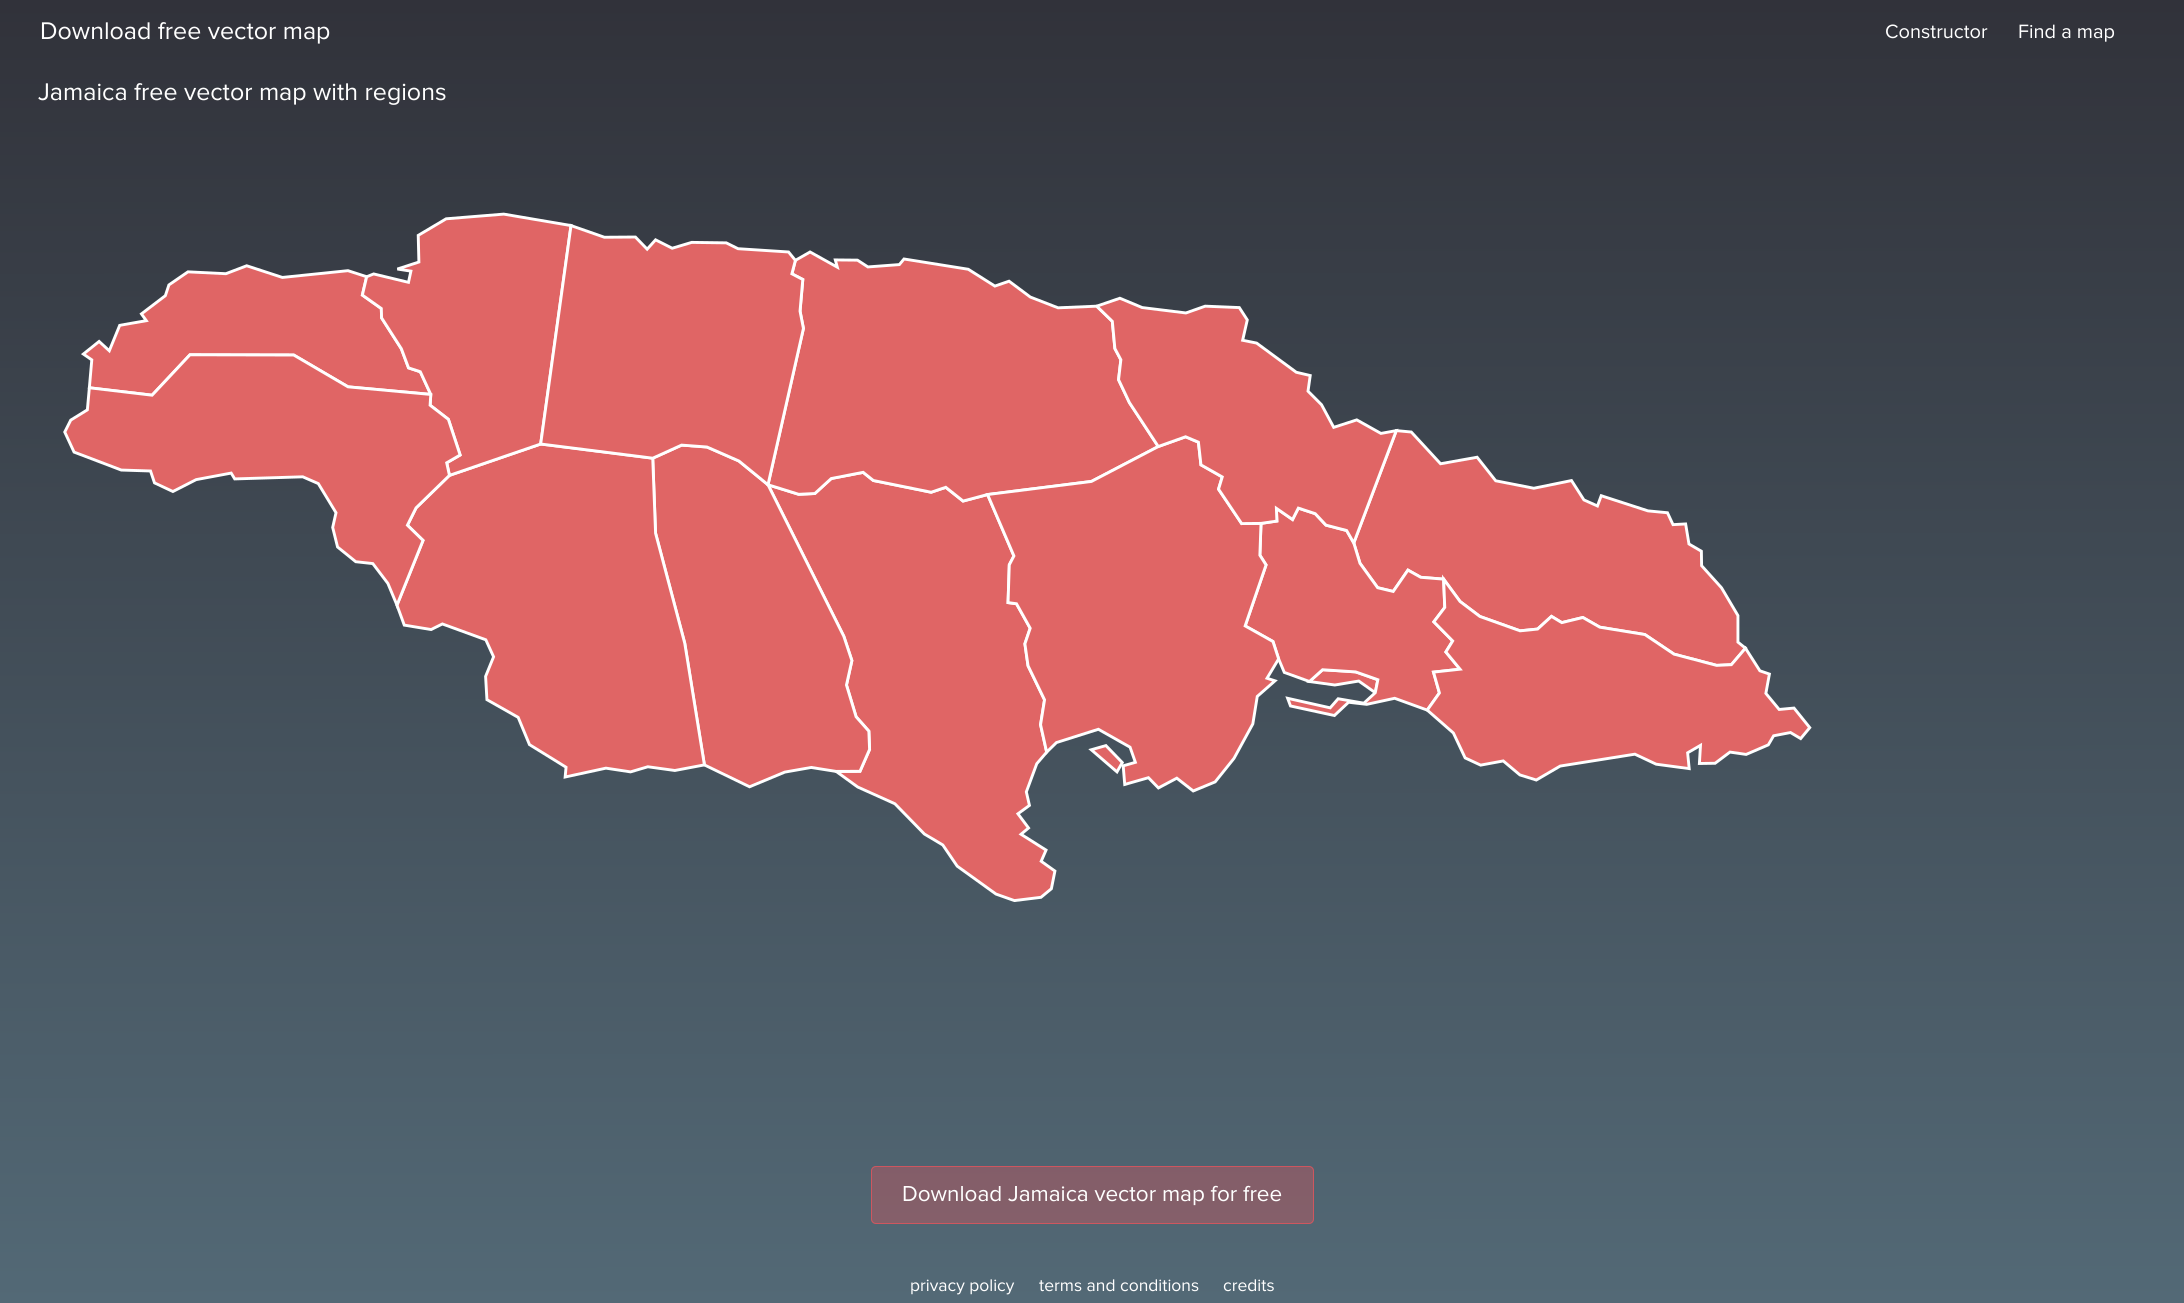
#include <cairo/cairo.h>
#include <math.h>
#include <stddef.h>

typedef struct { double x, y; const char *s; } line_t;
static cairo_t *cr;

static void rgb(unsigned color)
{
	cairo_set_source_rgb(cr, (color >> 16) / 255.0, (color >> 8 & 255) / 255.0, (color & 255) / 255.0);
}

static void rrect(double x, double y, double w, double h, double r)
{
	cairo_new_sub_path(cr);
	cairo_arc(cr, x + w - r, y + h - r, r, 0, M_PI / 2);
	cairo_arc(cr, x + r, y + h - r, r, M_PI / 2, M_PI);
	cairo_arc(cr, x + r, y + r, r, M_PI, 1.5 * M_PI);
	cairo_arc(cr, x + w - r, y + r, r, 1.5 * M_PI, 2 * M_PI);
	cairo_close_path(cr);
}

static void image(const char *path, double x, double y, double w, double h)
{
	cairo_surface_t *image = cairo_image_surface_create_from_png(path);
	cairo_save(cr);
	cairo_set_source_surface(cr, image, x, y);
	cairo_rectangle(cr, x, y, w, h);
	cairo_fill(cr);
	cairo_restore(cr);
	cairo_surface_destroy(image);
}

int main(void) {
	cairo_surface_t *surface = cairo_image_surface_create(CAIRO_FORMAT_RGB24, 2184, 1303);
	cr = cairo_create(surface);
	cairo_font_options_t *options = cairo_font_options_create();
	cairo_font_options_set_hint_metrics(options, CAIRO_HINT_METRICS_OFF);
	cairo_font_options_set_hint_style(options, CAIRO_HINT_STYLE_NONE);
	cairo_set_font_options(cr, options);
	cairo_set_miter_limit(cr, 4);
	cairo_pattern_t *gradient;
	rgb(0xffffff);
	cairo_paint(cr);
	gradient = cairo_pattern_create_linear(1092, 0, 1093, 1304);
	cairo_pattern_add_color_stop_rgba(gradient, 0, 0.192, 0.196, 0.227, 1);
	cairo_pattern_add_color_stop_rgba(gradient, 1, 0.325, 0.412, 0.463, 1);
	cairo_set_source(cr, gradient);
	cairo_pattern_destroy(gradient);
	cairo_rectangle(cr, 0, 0, 2184, 1303);
	cairo_fill(cr);
	image("img/1.png", 63, 212, 1749, 690);
	cairo_set_source_rgba(cr, 1, 0.325, 0.349, 0.3);
	rrect(871, 1166, 443, 58, 5);
	cairo_fill(cr);
	rrect(871.5, 1166.5, 442, 57, 4.5);
	cairo_set_source_rgba(cr, 1, 0.325, 0.349, 0.6);
	cairo_set_line_width(cr, 1);
	cairo_stroke(cr);
	cairo_select_font_face(cr, "Proxima Nova", CAIRO_FONT_SLANT_NORMAL, CAIRO_FONT_WEIGHT_NORMAL);
	cairo_set_font_size(cr, 25);
	rgb(0xffffff);
	cairo_move_to(cr, 40, 39);
	cairo_show_text(cr, "Download free vector map");
	cairo_set_font_size(cr, 20);
	cairo_move_to(cr, 1885, 38);
	cairo_show_text(cr, "Constructor");
	cairo_move_to(cr, 2018, 38);
	cairo_show_text(cr, "Find a map");
	cairo_set_font_size(cr, 25);
	cairo_move_to(cr, 38, 100);
	cairo_show_text(cr, "Jamaica free vector map with regions");
	cairo_set_font_size(cr, 22.5);
	cairo_move_to(cr, 902, 1201);
	cairo_show_text(cr, "Download Jamaica vector map for free");
	cairo_set_font_size(cr, 17.5);
	{
		static const line_t items[] = {
			{910, 1291, "privacy policy"},
			{1039, 1291, "terms and conditions"},
			{1223, 1291, "credits"},
		};
		for (size_t i = 0; i < sizeof items / sizeof *items; i++) {
			cairo_move_to(cr, items[i].x, items[i].y);
			cairo_show_text(cr, items[i].s);
		}
	}
	cairo_surface_write_to_png(surface, "page.png");
	cairo_font_options_destroy(options);
	cairo_destroy(cr);
	cairo_surface_destroy(surface);
	return 0;
}
